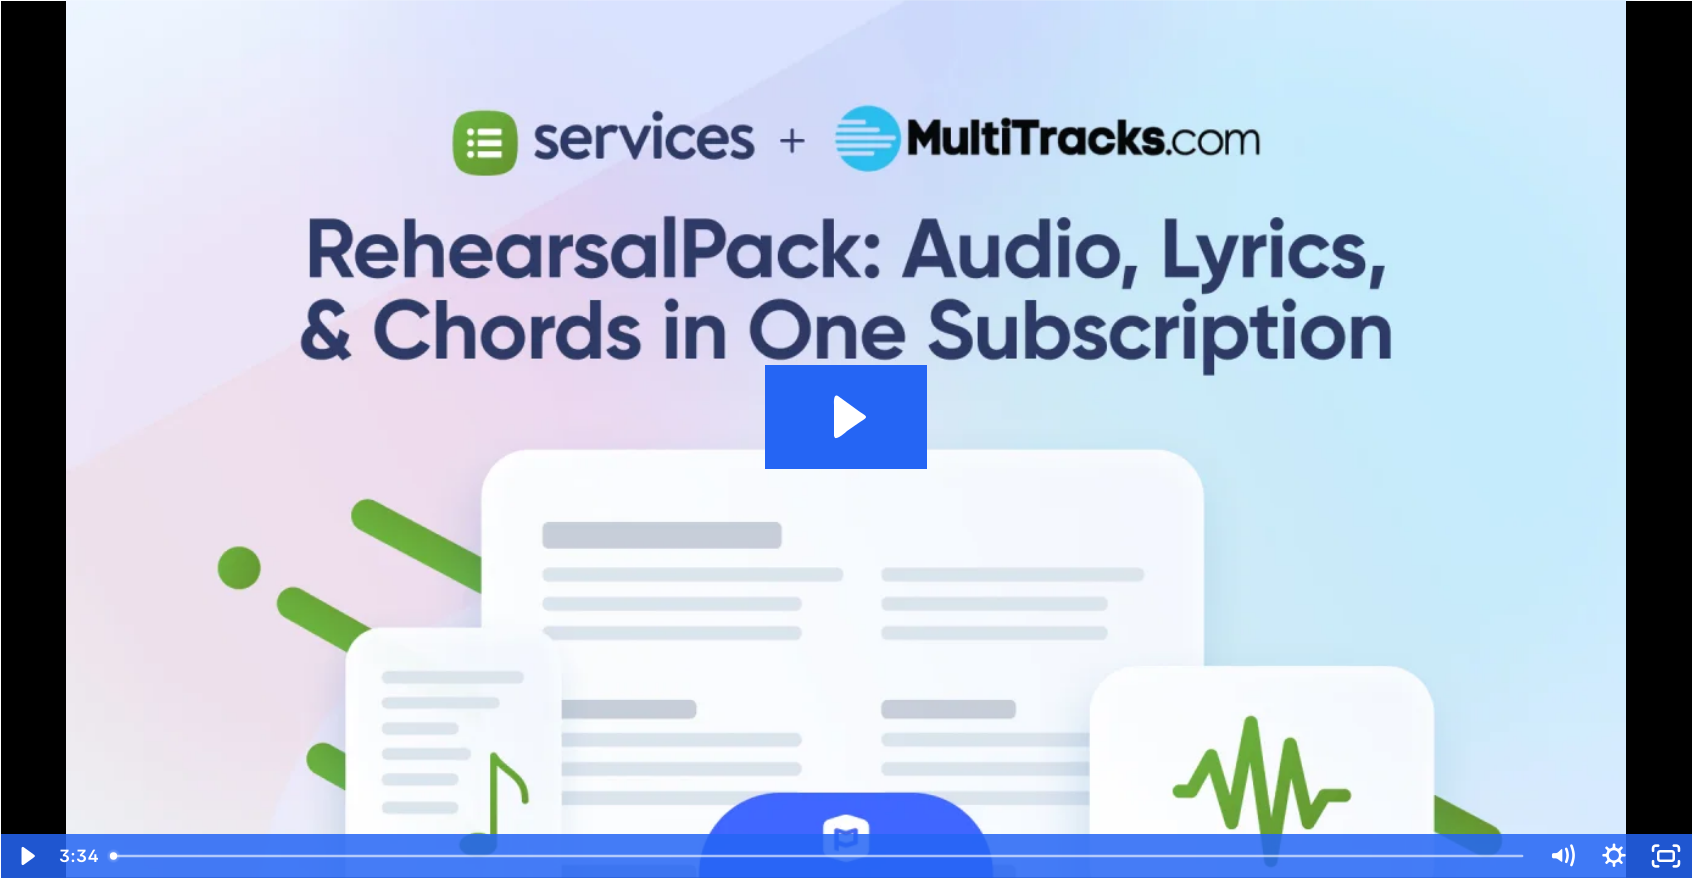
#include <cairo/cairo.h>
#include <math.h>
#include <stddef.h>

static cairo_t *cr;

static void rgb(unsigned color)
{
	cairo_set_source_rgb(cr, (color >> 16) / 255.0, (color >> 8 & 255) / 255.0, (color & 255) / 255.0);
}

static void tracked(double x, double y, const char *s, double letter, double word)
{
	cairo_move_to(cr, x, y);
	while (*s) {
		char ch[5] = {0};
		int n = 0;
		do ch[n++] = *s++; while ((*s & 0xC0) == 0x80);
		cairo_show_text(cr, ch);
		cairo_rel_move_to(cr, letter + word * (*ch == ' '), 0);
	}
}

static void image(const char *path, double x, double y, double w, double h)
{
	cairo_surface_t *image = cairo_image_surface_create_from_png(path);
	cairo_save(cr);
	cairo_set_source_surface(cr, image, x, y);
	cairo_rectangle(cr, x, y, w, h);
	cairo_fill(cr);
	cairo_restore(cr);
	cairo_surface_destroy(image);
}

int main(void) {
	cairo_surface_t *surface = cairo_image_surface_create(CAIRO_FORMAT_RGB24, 1692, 878);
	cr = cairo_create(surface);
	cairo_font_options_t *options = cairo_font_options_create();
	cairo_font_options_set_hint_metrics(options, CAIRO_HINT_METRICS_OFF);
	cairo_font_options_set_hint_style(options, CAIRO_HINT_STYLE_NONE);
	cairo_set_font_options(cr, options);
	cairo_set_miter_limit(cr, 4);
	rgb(0xffffff);
	cairo_paint(cr);
	image("img/1.png", 57, 0, 1580, 1);
	rgb(0x000000);
	cairo_rectangle(cr, 1, 1, 1691, 877);
	cairo_fill(cr);
	image("img/3.png", 56, 0, 1580, 1);
	image("img/2.png", 66, 0, 1560, 878);
	rgb(0x2565f4);
	cairo_rectangle(cr, 765, 365, 162, 104);
	cairo_fill(cr);
	rgb(0xffffff);
	cairo_set_fill_rule(cr, CAIRO_FILL_RULE_EVEN_ODD);
	cairo_new_path(cr);
	cairo_move_to(cr, 838, 396);
	cairo_curve_to(cr, 833, 393, 834, 404, 834, 405);
	cairo_line_to(cr, 834, 436);
	cairo_line_to(cr, 835, 438);
	cairo_curve_to(cr, 838, 439, 845, 433, 847, 431);
	cairo_line_to(cr, 860, 422);
	cairo_curve_to(cr, 868, 417, 868, 417, 860, 412);
	cairo_close_path(cr);
	cairo_fill(cr);
	cairo_set_source_rgba(cr, 0.145, 0.396, 0.957, 0.85);
	cairo_rectangle(cr, 1, 834, 1691, 44);
	cairo_fill(cr);
	image("img/4.png", 21, 846, 14, 20);
	image("img/5.png", 107, 849, 1417, 14);
	image("img/6.png", 1551, 844, 24, 23);
	image("img/7.png", 1602, 843, 24, 24);
	image("img/8.png", 1651, 844, 30, 24);
	cairo_select_font_face(cr, "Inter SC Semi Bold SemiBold", CAIRO_FONT_SLANT_NORMAL, CAIRO_FONT_WEIGHT_NORMAL);
	cairo_set_font_size(cr, 17);
	rgb(0xffffff);
	tracked(59, 862, "3:34", 0.5, 0);
	cairo_surface_write_to_png(surface, "page.png");
	cairo_font_options_destroy(options);
	cairo_destroy(cr);
	cairo_surface_destroy(surface);
	return 0;
}
